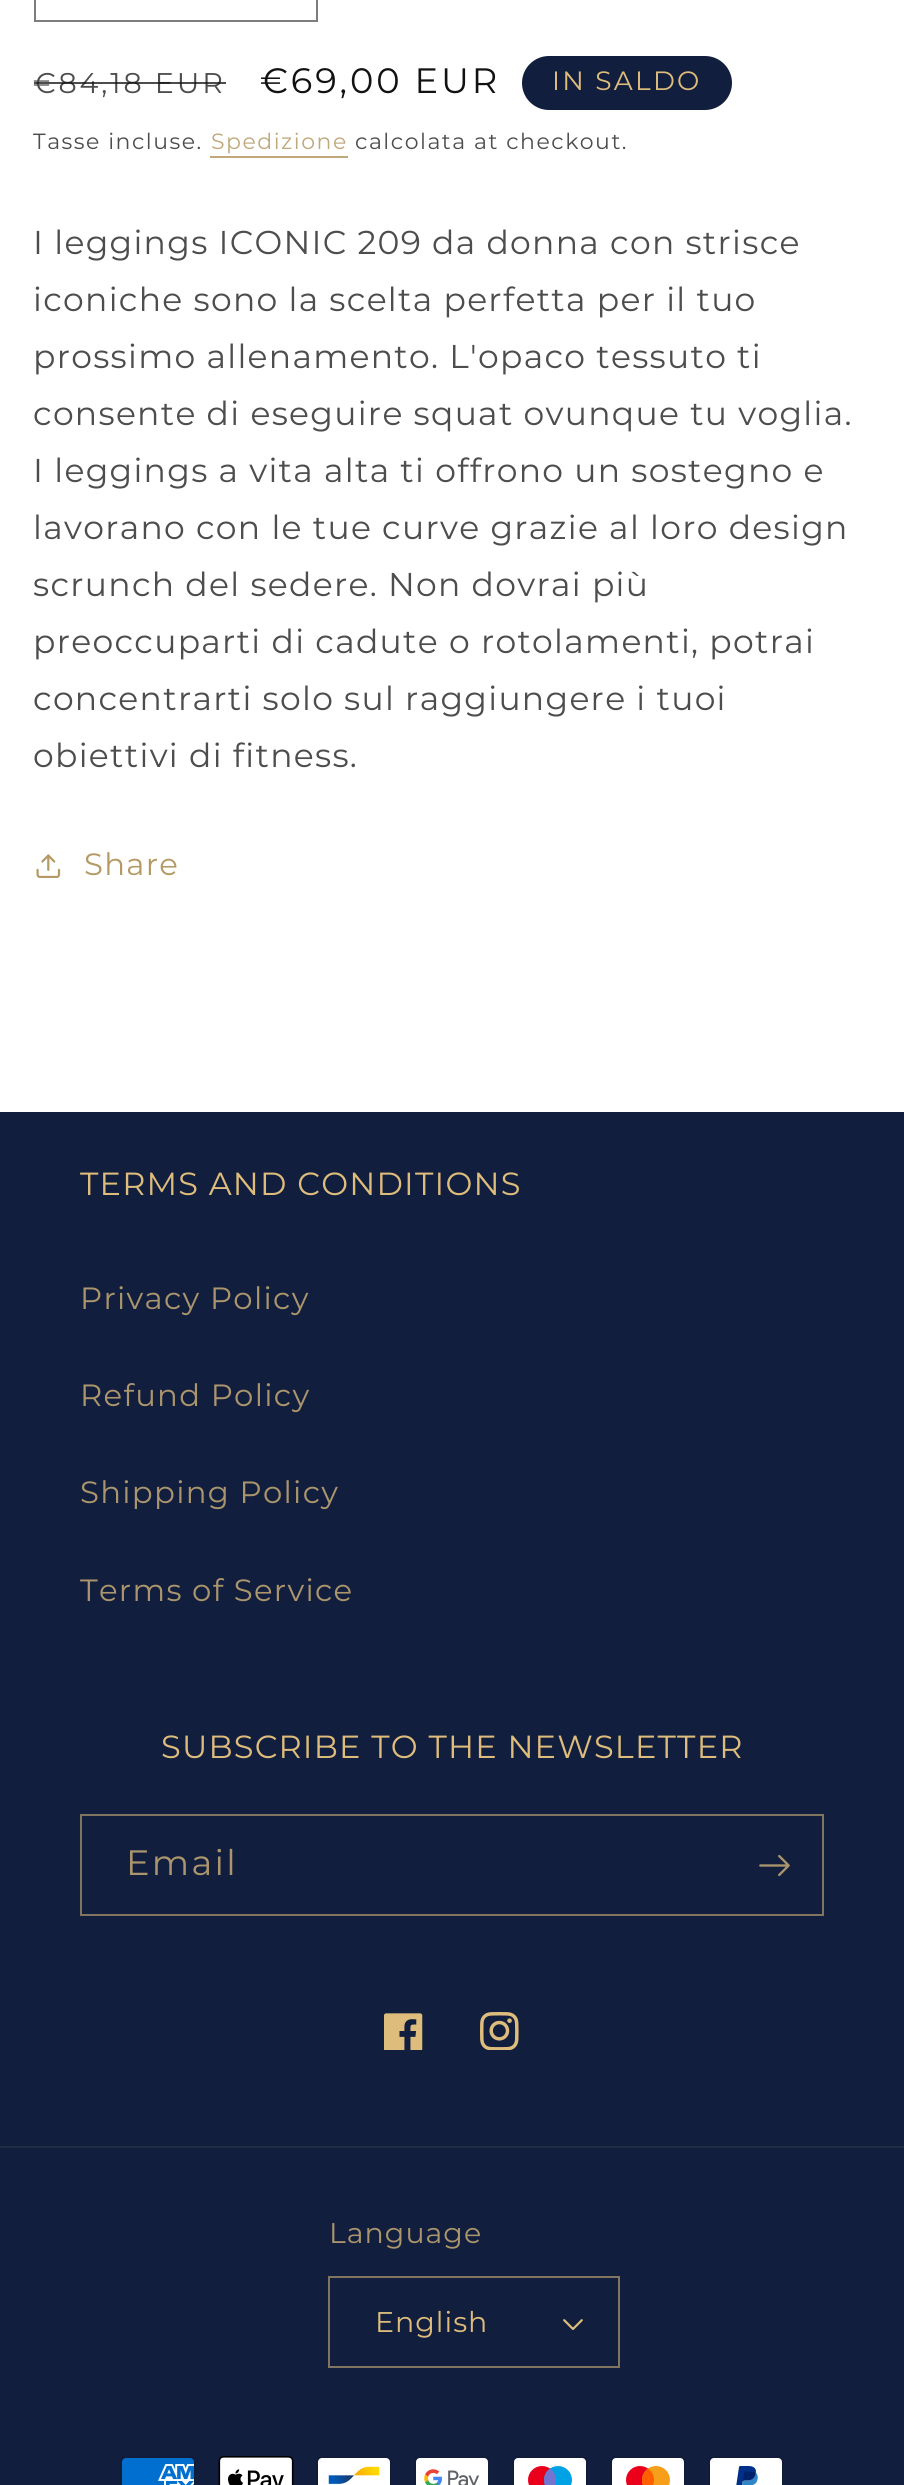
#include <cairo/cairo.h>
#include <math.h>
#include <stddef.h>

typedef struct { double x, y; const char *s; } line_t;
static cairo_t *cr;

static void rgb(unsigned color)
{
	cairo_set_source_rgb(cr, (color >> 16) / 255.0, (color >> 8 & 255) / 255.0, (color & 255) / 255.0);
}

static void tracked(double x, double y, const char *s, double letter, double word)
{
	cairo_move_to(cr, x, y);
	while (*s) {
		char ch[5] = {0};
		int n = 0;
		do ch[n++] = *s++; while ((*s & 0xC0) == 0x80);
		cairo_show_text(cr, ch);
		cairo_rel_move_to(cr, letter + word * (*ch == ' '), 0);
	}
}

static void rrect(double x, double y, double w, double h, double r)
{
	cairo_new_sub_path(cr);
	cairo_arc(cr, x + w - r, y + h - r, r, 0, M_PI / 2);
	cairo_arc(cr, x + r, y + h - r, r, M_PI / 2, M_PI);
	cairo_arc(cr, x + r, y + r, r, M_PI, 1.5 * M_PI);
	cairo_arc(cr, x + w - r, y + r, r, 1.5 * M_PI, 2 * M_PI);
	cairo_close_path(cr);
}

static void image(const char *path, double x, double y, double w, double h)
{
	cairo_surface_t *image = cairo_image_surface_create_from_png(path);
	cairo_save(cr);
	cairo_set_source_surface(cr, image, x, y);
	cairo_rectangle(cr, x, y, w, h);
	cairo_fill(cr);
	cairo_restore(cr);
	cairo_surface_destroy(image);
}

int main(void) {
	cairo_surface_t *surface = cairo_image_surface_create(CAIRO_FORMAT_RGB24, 904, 2485);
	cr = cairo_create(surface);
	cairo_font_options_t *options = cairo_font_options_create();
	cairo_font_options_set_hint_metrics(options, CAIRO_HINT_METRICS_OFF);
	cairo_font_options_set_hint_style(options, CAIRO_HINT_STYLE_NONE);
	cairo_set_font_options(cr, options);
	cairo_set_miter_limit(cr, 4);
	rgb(0xffffff);
	cairo_paint(cr);
	cairo_rectangle(cr, 35, -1, 282, 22);
	rgb(0x7d7d7d);
	cairo_stroke(cr);
	rgb(0x111e3e);
	rrect(523, 57, 208, 52, 26);
	cairo_fill_preserve(cr);
	cairo_stroke(cr);
	rgb(0xc0a87b);
	cairo_rectangle(cr, 210, 156, 138, 2);
	cairo_fill(cr);
	image("img/1.png", 36, 854, 25, 24);
	rgb(0x111e3e);
	cairo_rectangle(cr, 0, 1112, 904, 1373);
	cairo_fill(cr);
	cairo_rectangle(cr, 81, 1815, 742, 100);
	rgb(0x827560);
	cairo_stroke(cr);
	image("img/2.png", 759, 1854, 31, 23);
	image("img/3.png", 384, 2013, 39, 37);
	image("img/4.png", 480, 2012, 39, 38);
	rgb(0x212b43);
	cairo_rectangle(cr, 0, 2146, 904, 2);
	cairo_fill(cr);
	image("img/5.png", 563, 2319, 20, 11);
	cairo_rectangle(cr, 329, 2277, 290, 90);
	rgb(0x827560);
	cairo_stroke(cr);
	image("img/6.png", 120, 2456, 76, 29);
	image("img/7.png", 218, 2456, 76, 29);
	image("img/8.png", 316, 2456, 76, 29);
	image("img/9.png", 414, 2456, 76, 29);
	image("img/10.png", 512, 2456, 76, 29);
	image("img/11.png", 610, 2456, 76, 29);
	image("img/12.png", 708, 2456, 76, 29);
	cairo_select_font_face(cr, "Montserrat", CAIRO_FONT_SLANT_NORMAL, CAIRO_FONT_WEIGHT_NORMAL);
	cairo_set_font_size(cr, 28.5);
	rgb(0x4d4d4d);
	tracked(33, 93, "€84,18 EUR", 2.9, 0);
	cairo_set_source_rgba(cr, 0.071, 0.071, 0.071, 0.75);
	cairo_rectangle(cr, 34, 82, 192, 2);
	cairo_fill(cr);
	cairo_set_font_size(cr, 35.25);
	rgb(0x121212);
	tracked(260, 93, "€69,00 EUR", 2.9, 0);
	cairo_set_font_size(cr, 26.5);
	rgb(0xdebc7b);
	tracked(552, 90, "IN SALDO", 2.25, 0);
	cairo_set_font_size(cr, 22);
	rgb(0x4d4d4d);
	tracked(33, 149, "Tasse incluse.", 1.5, 0);
	rgb(0xc0a87b);
	tracked(211, 149, "Spedizione", 1.5, 0);
	rgb(0x4d4d4d);
	tracked(355, 149, "calcolata at checkout.", 1.5, 0);
	cairo_set_font_size(cr, 33);
	{
		static const line_t items[] = {
			{33, 254, "I leggings ICONIC 209 da donna con strisce"},
			{33, 311, "iconiche sono la scelta perfetta per il tuo"},
			{33, 368, "prossimo allenamento. L'opaco tessuto ti"},
			{33, 425, "consente di eseguire squat ovunque tu voglia."},
			{33, 482, "I leggings a vita alta ti offrono un sostegno e"},
			{33, 539, "lavorano con le tue curve grazie al loro design"},
			{33, 596, "scrunch del sedere. Non dovrai più"},
			{33, 653, "preoccuparti di cadute o rotolamenti, potrai"},
			{33, 710, "concentrarti solo sul raggiungere i tuoi"},
			{33, 767, "obiettivi di fitness."},
		};
		for (size_t i = 0; i < sizeof items / sizeof *items; i++) {
			tracked(items[i].x, items[i].y, items[i].s, 1.3, 0);
		}
	}
	cairo_set_font_size(cr, 30.75);
	rgb(0xb59964);
	tracked(84, 875, "Share", 1.3, 0);
	cairo_set_font_size(cr, 32);
	rgb(0xdebc7b);
	tracked(80, 1195, "TERMS AND CONDITIONS", 1.2, 0);
	cairo_set_font_size(cr, 30.75);
	rgb(0xab956c);
	{
		static const line_t items[] = {
			{80, 1309, "Privacy Policy"},
			{80, 1406, "Refund Policy"},
			{80, 1503, "Shipping Policy"},
			{80, 1601, "Terms of Service"},
		};
		for (size_t i = 0; i < sizeof items / sizeof *items; i++) {
			tracked(items[i].x, items[i].y, items[i].s, 1.3, 0);
		}
	}
	cairo_set_font_size(cr, 32);
	rgb(0xdebc7b);
	tracked(161, 1758, "SUBSCRIBE TO THE NEWSLETTER", 1.2, 0);
	cairo_set_font_size(cr, 35.25);
	rgb(0xab956c);
	tracked(126, 1875, "Email", 2.25, 0);
	cairo_set_font_size(cr, 28.5);
	tracked(329, 2243, "Language", 1, 0);
	rgb(0xdebc7b);
	tracked(375, 2332, "English", 1, 0);
	cairo_surface_write_to_png(surface, "page.png");
	cairo_font_options_destroy(options);
	cairo_destroy(cr);
	cairo_surface_destroy(surface);
	return 0;
}
